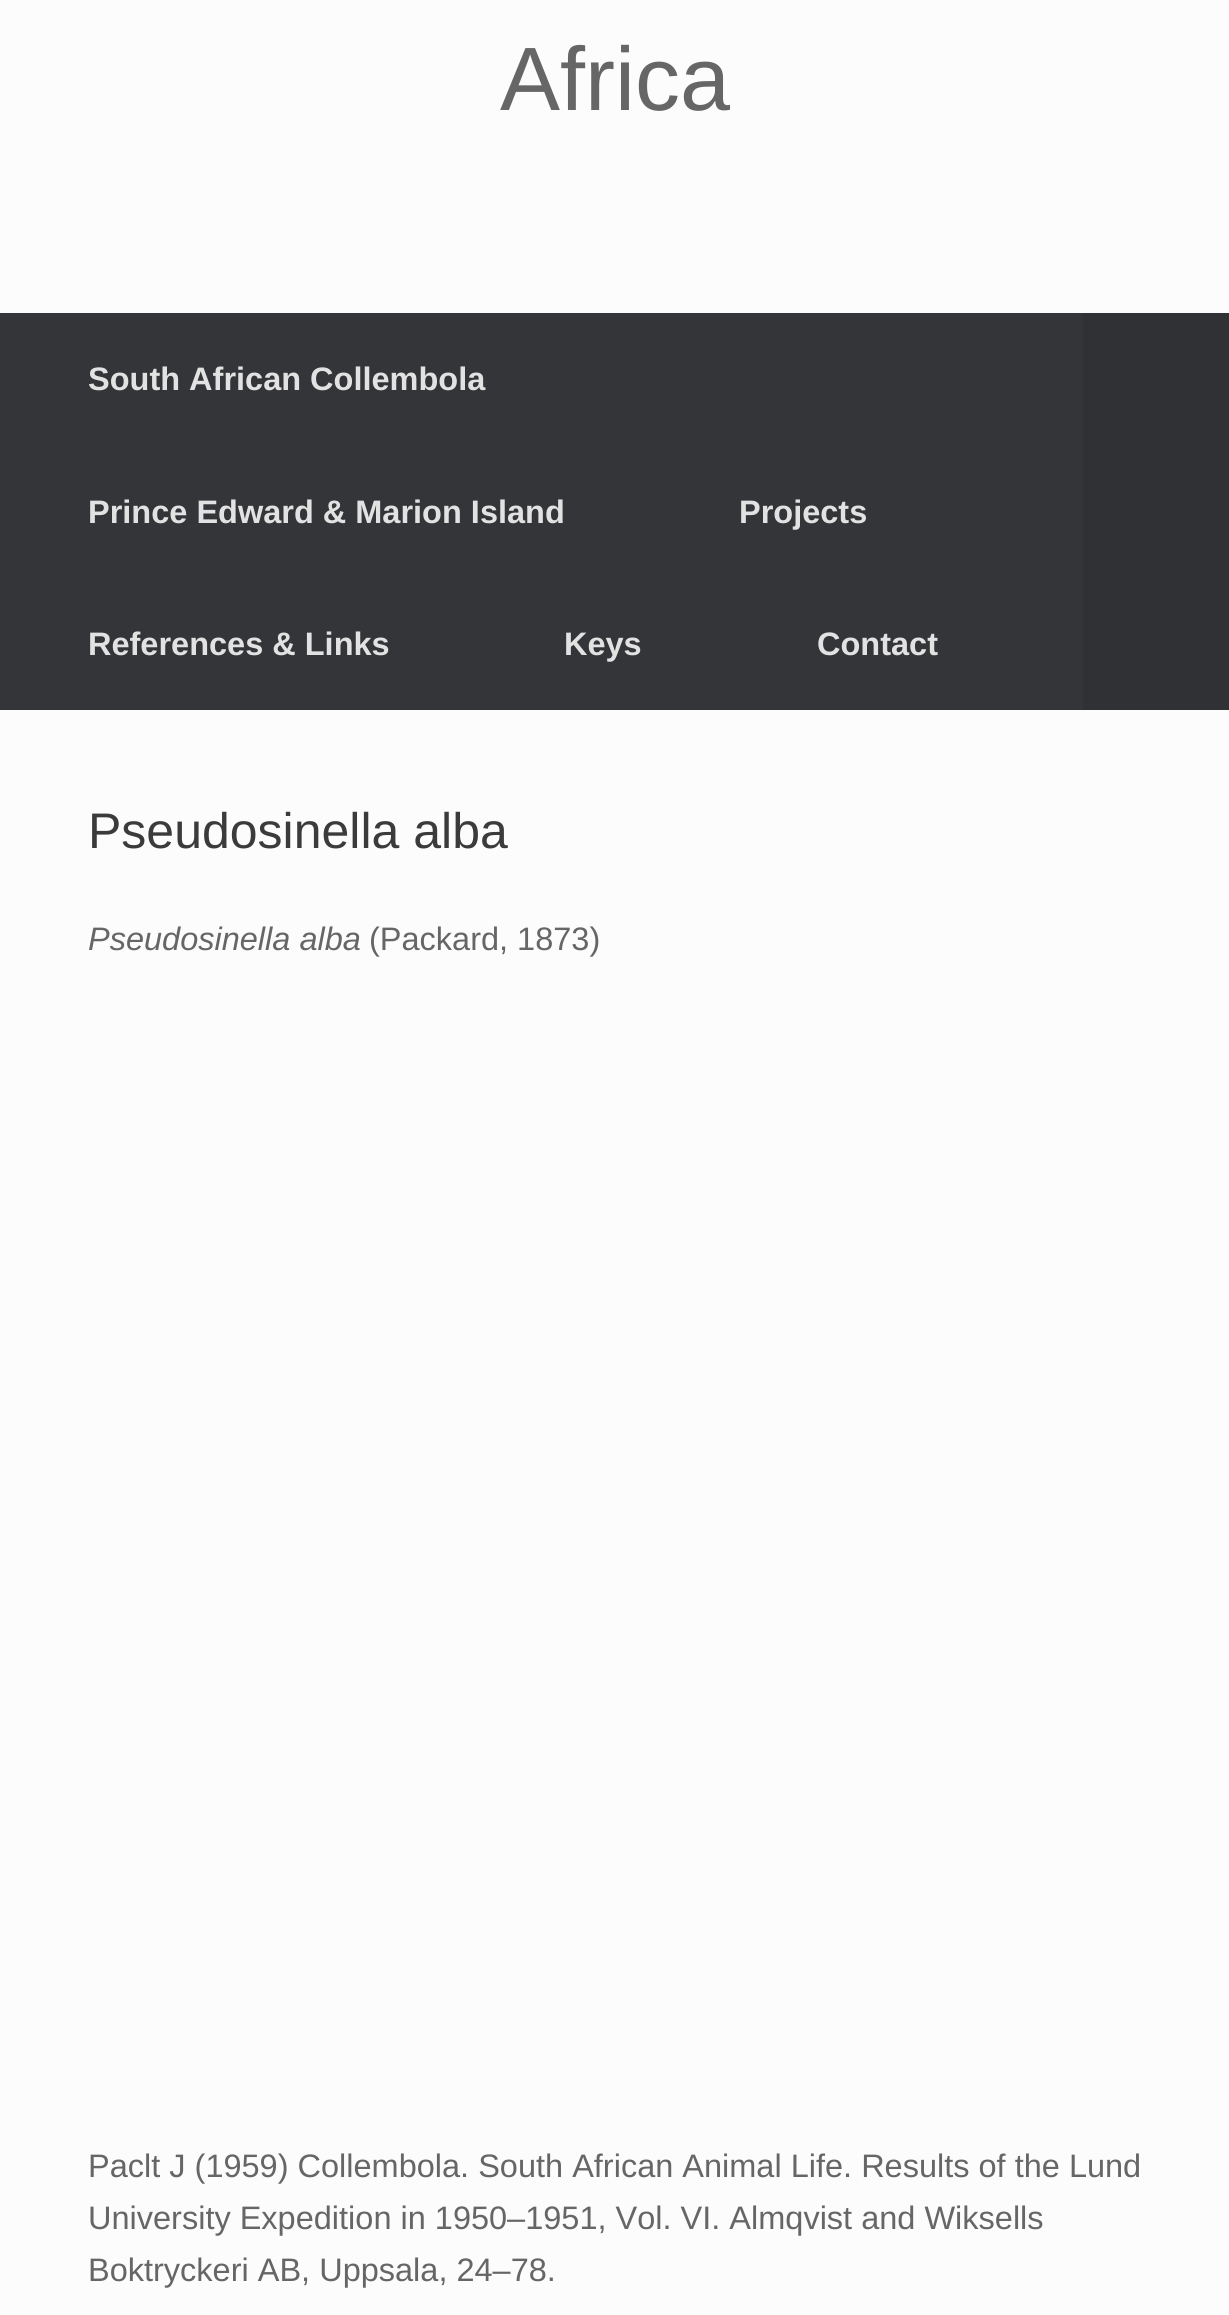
#include <cairo/cairo.h>
#include <math.h>
#include <stddef.h>

typedef struct { double x, y; const char *s; } line_t;
static cairo_t *cr;

static void rgb(unsigned color)
{
	cairo_set_source_rgb(cr, (color >> 16) / 255.0, (color >> 8 & 255) / 255.0, (color & 255) / 255.0);
}

int main(void) {
	cairo_surface_t *surface = cairo_image_surface_create(CAIRO_FORMAT_RGB24, 1229, 2315);
	cr = cairo_create(surface);
	cairo_font_options_t *options = cairo_font_options_create();
	cairo_font_options_set_hint_metrics(options, CAIRO_HINT_METRICS_OFF);
	cairo_font_options_set_hint_style(options, CAIRO_HINT_STYLE_NONE);
	cairo_set_font_options(cr, options);
	cairo_set_miter_limit(cr, 4);
	rgb(0xfcfcfc);
	cairo_paint(cr);
	rgb(0x343538);
	cairo_rectangle(cr, 0, 313, 1083, 397);
	cairo_fill(cr);
	rgb(0x303134);
	cairo_rectangle(cr, 1083, 313, 146, 397);
	cairo_fill(cr);
	cairo_select_font_face(cr, "Liberation Sans", CAIRO_FONT_SLANT_NORMAL, CAIRO_FONT_WEIGHT_NORMAL);
	cairo_set_font_size(cr, 90);
	rgb(0x666666);
	cairo_move_to(cr, 500, 110);
	cairo_show_text(cr, "Africa");
	cairo_select_font_face(cr, "Liberation Sans", CAIRO_FONT_SLANT_NORMAL, CAIRO_FONT_WEIGHT_BOLD);
	cairo_set_font_size(cr, 32.5);
	rgb(0xe2e2e2);
	{
		static const line_t items[] = {
			{88, 390, "South African Collembola"},
			{88, 523, "Prince Edward & Marion Island"},
			{739, 523, "Projects"},
			{88, 655, "References & Links"},
			{564, 655, "Keys"},
			{817, 655, "Contact"},
		};
		for (size_t i = 0; i < sizeof items / sizeof *items; i++) {
			cairo_move_to(cr, items[i].x, items[i].y);
			cairo_show_text(cr, items[i].s);
		}
	}
	cairo_select_font_face(cr, "Liberation Sans", CAIRO_FONT_SLANT_NORMAL, CAIRO_FONT_WEIGHT_NORMAL);
	cairo_set_font_size(cr, 50);
	rgb(0x3b3b3b);
	cairo_move_to(cr, 88, 848);
	cairo_show_text(cr, "Pseudosinella alba");
	cairo_select_font_face(cr, "Liberation Sans", CAIRO_FONT_SLANT_ITALIC, CAIRO_FONT_WEIGHT_NORMAL);
	cairo_set_font_size(cr, 32.5);
	rgb(0x666666);
	cairo_move_to(cr, 88, 950);
	cairo_show_text(cr, "Pseudosinella alba");
	cairo_select_font_face(cr, "Liberation Sans", CAIRO_FONT_SLANT_NORMAL, CAIRO_FONT_WEIGHT_NORMAL);
	{
		static const line_t items[] = {
			{369, 950, "(Packard, 1873)"},
			{88, 2177, "Paclt J (1959) Collembola. South African Animal Life. Results of the Lund"},
			{88, 2229, "University Expedition in 1950–1951, Vol. VI. Almqvist and Wiksells"},
			{88, 2281, "Boktryckeri AB, Uppsala, 24–78."},
		};
		for (size_t i = 0; i < sizeof items / sizeof *items; i++) {
			cairo_move_to(cr, items[i].x, items[i].y);
			cairo_show_text(cr, items[i].s);
		}
	}
	cairo_surface_write_to_png(surface, "page.png");
	cairo_font_options_destroy(options);
	cairo_destroy(cr);
	cairo_surface_destroy(surface);
	return 0;
}
